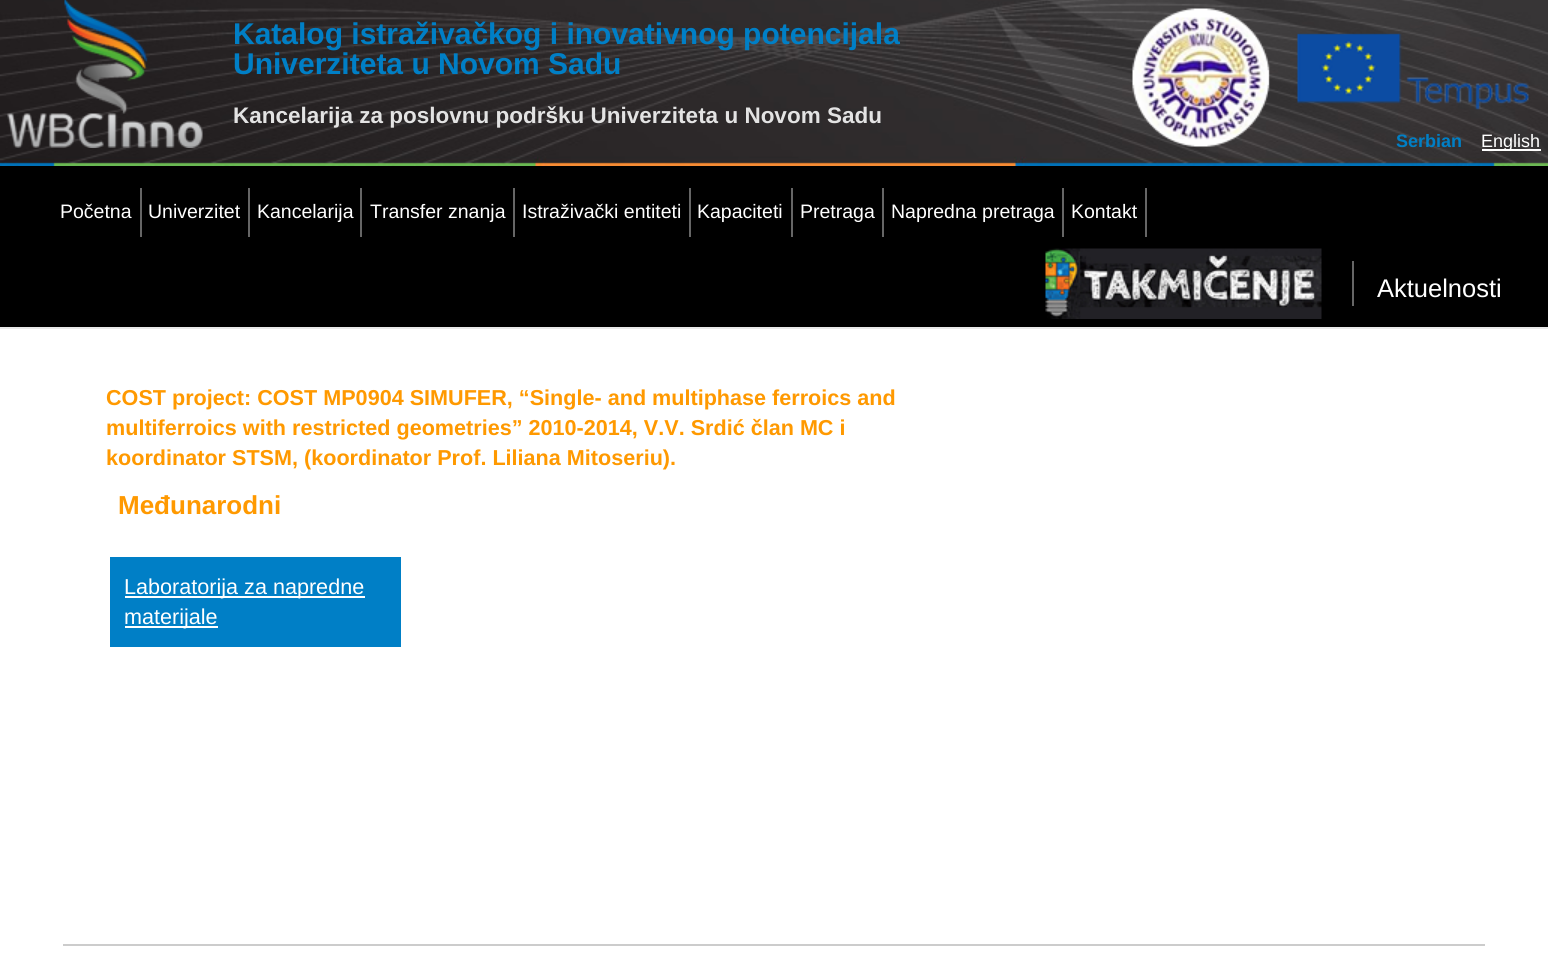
#include <cairo/cairo.h>
#include <math.h>
#include <stddef.h>

typedef struct { double x, y; const char *s; } line_t;
typedef struct { double x, y, w, h; unsigned color; } box_t;
static cairo_t *cr;

static void rgb(unsigned color)
{
	cairo_set_source_rgb(cr, (color >> 16) / 255.0, (color >> 8 & 255) / 255.0, (color & 255) / 255.0);
}

static void image(const char *path, double x, double y, double w, double h)
{
	cairo_surface_t *image = cairo_image_surface_create_from_png(path);
	cairo_save(cr);
	cairo_set_source_surface(cr, image, x, y);
	cairo_rectangle(cr, x, y, w, h);
	cairo_fill(cr);
	cairo_restore(cr);
	cairo_surface_destroy(image);
}

int main(void) {
	cairo_surface_t *surface = cairo_image_surface_create(CAIRO_FORMAT_RGB24, 1548, 955);
	cr = cairo_create(surface);
	cairo_font_options_t *options = cairo_font_options_create();
	cairo_font_options_set_hint_metrics(options, CAIRO_HINT_METRICS_OFF);
	cairo_font_options_set_hint_style(options, CAIRO_HINT_STYLE_NONE);
	cairo_set_font_options(cr, options);
	cairo_set_miter_limit(cr, 4);
	rgb(0xffffff);
	cairo_paint(cr);
	rgb(0x000000);
	cairo_rectangle(cr, 0, 166, 1548, 161);
	cairo_fill(cr);
	image("img/1.png", 0, 0, 1548, 166);
	rgb(0xe9e9e9);
	cairo_rectangle(cr, 0, 327, 1548, 2);
	cairo_fill(cr);
	image("img/2.png", 7, 0, 196, 148);
	image("img/3.png", 1132, 8, 397, 139);
	{
		static const box_t items[] = {
			{1482, 149, 59, 2, 0xffffff},
			{140, 188, 2, 49, 0x666666},
			{248, 188, 2, 49, 0x666666},
			{360, 188, 2, 49, 0x666666},
			{513, 188, 2, 49, 0x666666},
			{689, 188, 2, 49, 0x666666},
			{791, 188, 2, 49, 0x666666},
			{882, 188, 2, 49, 0x666666},
			{1062, 188, 2, 49, 0x666666},
			{1145, 188, 2, 49, 0x666666},
		};
		for (size_t i = 0; i < sizeof items / sizeof *items; i++) {
			rgb(items[i].color);
			cairo_rectangle(cr, items[i].x, items[i].y, items[i].w, items[i].h);
			cairo_fill(cr);
		}
	}
	image("img/4.png", 1045, 248, 277, 71);
	{
		static const box_t items[] = {
			{1352, 261, 2, 45, 0x666666},
			{110, 557, 291, 90, 0x007fc6},
			{125, 596, 240, 2, 0xffffff},
			{125, 626, 93, 2, 0xffffff},
			{63, 944, 1422, 2, 0xcccccc},
		};
		for (size_t i = 0; i < sizeof items / sizeof *items; i++) {
			rgb(items[i].color);
			cairo_rectangle(cr, items[i].x, items[i].y, items[i].w, items[i].h);
			cairo_fill(cr);
		}
	}
	cairo_select_font_face(cr, "Liberation Sans", CAIRO_FONT_SLANT_NORMAL, CAIRO_FONT_WEIGHT_BOLD);
	cairo_set_font_size(cr, 30);
	rgb(0x007fc6);
	cairo_move_to(cr, 233, 44);
	cairo_show_text(cr, "Katalog istraživačkog i inovativnog potencijala");
	cairo_move_to(cr, 233, 74);
	cairo_show_text(cr, "Univerziteta u Novom Sadu");
	cairo_set_font_size(cr, 22.5);
	rgb(0xe3e3e3);
	cairo_move_to(cr, 233, 123);
	cairo_show_text(cr, "Kancelarija za poslovnu podršku Univerziteta u Novom Sadu");
	cairo_set_font_size(cr, 18);
	rgb(0x007fc6);
	cairo_move_to(cr, 1396, 147);
	cairo_show_text(cr, "Serbian");
	cairo_select_font_face(cr, "Liberation Sans", CAIRO_FONT_SLANT_NORMAL, CAIRO_FONT_WEIGHT_NORMAL);
	rgb(0xffffff);
	cairo_move_to(cr, 1481, 147);
	cairo_show_text(cr, "English");
	cairo_set_font_size(cr, 19.5);
	{
		static const line_t items[] = {
			{60, 218, "Početna"},
			{148, 218, "Univerzitet"},
			{257, 218, "Kancelarija"},
			{370, 218, "Transfer znanja"},
			{522, 218, "Istraživački entiteti"},
			{697, 218, "Kapaciteti"},
			{800, 218, "Pretraga"},
			{891, 218, "Napredna pretraga"},
			{1071, 218, "Kontakt"},
		};
		for (size_t i = 0; i < sizeof items / sizeof *items; i++) {
			cairo_move_to(cr, items[i].x, items[i].y);
			cairo_show_text(cr, items[i].s);
		}
	}
	cairo_set_font_size(cr, 25.5);
	cairo_move_to(cr, 1377, 297);
	cairo_show_text(cr, "Aktuelnosti");
	cairo_select_font_face(cr, "Liberation Sans", CAIRO_FONT_SLANT_NORMAL, CAIRO_FONT_WEIGHT_BOLD);
	cairo_set_font_size(cr, 21.6);
	rgb(0xff9900);
	{
		static const line_t items[] = {
			{106, 405, "COST project: COST MP0904 SIMUFER, “Single- and multiphase ferroics and"},
			{106, 435, "multiferroics with restricted geometries” 2010-2014, V.V. Srdić član MC i"},
			{106, 465, "koordinator STSM, (koordinator Prof. Liliana Mitoseriu)."},
		};
		for (size_t i = 0; i < sizeof items / sizeof *items; i++) {
			cairo_move_to(cr, items[i].x, items[i].y);
			cairo_show_text(cr, items[i].s);
		}
	}
	cairo_set_font_size(cr, 26);
	cairo_move_to(cr, 118, 514);
	cairo_show_text(cr, "Međunarodni");
	cairo_select_font_face(cr, "Liberation Sans", CAIRO_FONT_SLANT_NORMAL, CAIRO_FONT_WEIGHT_NORMAL);
	cairo_set_font_size(cr, 21.6);
	rgb(0xffffff);
	cairo_move_to(cr, 124, 594);
	cairo_show_text(cr, "Laboratorija za napredne");
	cairo_move_to(cr, 124, 624);
	cairo_show_text(cr, "materijale");
	cairo_surface_write_to_png(surface, "page.png");
	cairo_font_options_destroy(options);
	cairo_destroy(cr);
	cairo_surface_destroy(surface);
	return 0;
}
